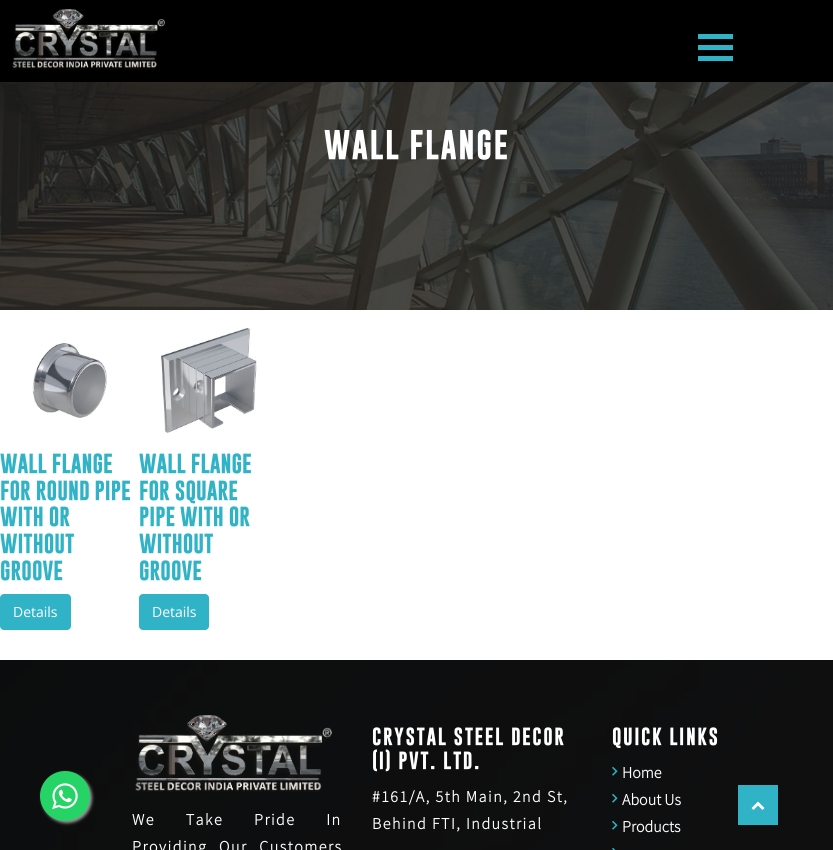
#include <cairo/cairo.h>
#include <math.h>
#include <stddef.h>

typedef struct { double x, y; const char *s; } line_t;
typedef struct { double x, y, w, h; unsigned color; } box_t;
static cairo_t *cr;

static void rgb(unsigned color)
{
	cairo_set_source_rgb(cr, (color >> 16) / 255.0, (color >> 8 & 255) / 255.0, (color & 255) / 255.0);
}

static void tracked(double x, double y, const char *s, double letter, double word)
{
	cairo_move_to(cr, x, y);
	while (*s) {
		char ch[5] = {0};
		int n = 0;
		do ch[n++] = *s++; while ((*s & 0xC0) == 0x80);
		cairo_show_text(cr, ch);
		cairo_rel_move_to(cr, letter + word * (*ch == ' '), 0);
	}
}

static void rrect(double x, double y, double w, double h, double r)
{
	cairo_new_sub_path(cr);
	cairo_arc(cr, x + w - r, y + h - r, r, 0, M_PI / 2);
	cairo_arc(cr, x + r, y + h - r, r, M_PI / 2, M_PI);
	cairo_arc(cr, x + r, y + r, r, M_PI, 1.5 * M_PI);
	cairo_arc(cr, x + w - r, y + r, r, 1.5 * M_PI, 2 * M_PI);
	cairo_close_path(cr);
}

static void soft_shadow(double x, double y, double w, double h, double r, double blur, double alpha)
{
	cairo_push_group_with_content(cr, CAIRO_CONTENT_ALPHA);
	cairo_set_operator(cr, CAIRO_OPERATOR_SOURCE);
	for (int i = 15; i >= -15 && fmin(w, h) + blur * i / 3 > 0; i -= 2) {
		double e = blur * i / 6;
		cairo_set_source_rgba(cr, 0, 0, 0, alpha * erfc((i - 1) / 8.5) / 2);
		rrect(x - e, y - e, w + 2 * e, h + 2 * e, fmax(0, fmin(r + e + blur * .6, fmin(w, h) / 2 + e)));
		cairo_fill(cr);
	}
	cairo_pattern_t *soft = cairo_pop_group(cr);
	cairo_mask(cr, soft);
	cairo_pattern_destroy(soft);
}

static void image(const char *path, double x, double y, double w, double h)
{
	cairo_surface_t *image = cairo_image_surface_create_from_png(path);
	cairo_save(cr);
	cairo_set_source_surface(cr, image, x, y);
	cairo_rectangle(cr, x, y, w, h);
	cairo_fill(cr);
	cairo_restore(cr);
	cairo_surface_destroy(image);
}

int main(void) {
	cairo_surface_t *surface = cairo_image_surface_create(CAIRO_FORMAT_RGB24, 833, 850);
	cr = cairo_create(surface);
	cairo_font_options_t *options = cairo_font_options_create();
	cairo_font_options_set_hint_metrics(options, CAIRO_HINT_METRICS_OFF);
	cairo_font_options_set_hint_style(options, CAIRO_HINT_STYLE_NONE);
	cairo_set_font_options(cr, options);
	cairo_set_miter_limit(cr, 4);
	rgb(0xffffff);
	cairo_paint(cr);
	rgb(0x000000);
	cairo_rectangle(cr, 0, 0, 833, 82);
	cairo_fill(cr);
	image("img/1.png", 12, 9, 154, 61);
	{
		static const box_t items[] = {
			{698, 34, 35, 5, 0x30b3c6},
			{698, 45, 35, 5, 0x30b3c6},
			{698, 56, 35, 5, 0x30b3c6},
		};
		for (size_t i = 0; i < sizeof items / sizeof *items; i++) {
			rgb(items[i].color);
			cairo_rectangle(cr, items[i].x, items[i].y, items[i].w, items[i].h);
			cairo_fill(cr);
		}
	}
	image("img/2.png", 0, 82, 833, 228);
	image("img/3.png", 32, 343, 76, 75);
	rrect(0.5, 594.5, 70, 35, 3.5);
	cairo_fill_preserve(cr);
	cairo_set_line_width(cr, 1);
	cairo_stroke(cr);
	image("img/4.png", 161, 328, 96, 105);
	rrect(139.5, 594.5, 69, 35, 3.5);
	cairo_fill_preserve(cr);
	cairo_stroke(cr);
	image("img/5.png", 0, 660, 833, 190);
	image("img/6.png", 135, 715, 197, 77);
	image("img/7.png", 612, 766, 6, 10);
	image("img/7.png", 612, 793, 6, 10);
	image("img/7.png", 612, 820, 6, 10);
	image("img/8.png", 612, 847, 4, 3);
	rgb(0x999999);
	soft_shadow(42, 773, 50, 50, 25, 1.5, 1);
	rgb(0x25d366);
	cairo_arc(cr, 65, 796, 25, 0, 2 * M_PI);
	cairo_fill(cr);
	image("img/9.png", 52, 783, 26, 27);
	rgb(0x30b3c6);
	cairo_rectangle(cr, 738, 785, 40, 40);
	cairo_fill(cr);
	image("img/10.png", 751, 801, 14, 9);
	cairo_select_font_face(cr, "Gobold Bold", CAIRO_FONT_SLANT_NORMAL, CAIRO_FONT_WEIGHT_BOLD);
	cairo_set_font_size(cr, 30);
	rgb(0xffffff);
	tracked(324, 159, "WALL FLANGE", 1.5, 0);
	cairo_set_font_size(cr, 20);
	rgb(0x30b3c6);
	{
		static const line_t items[] = {
			{0, 473, "WALL FLANGE"},
			{0, 500, "FOR ROUND PIPE"},
			{0, 526, "WITH OR"},
			{0, 553, "WITHOUT"},
			{0, 580, "GROOVE"},
		};
		for (size_t i = 0; i < sizeof items / sizeof *items; i++) {
			cairo_move_to(cr, items[i].x, items[i].y);
			cairo_show_text(cr, items[i].s);
		}
	}
	cairo_select_font_face(cr, "Open Sans", CAIRO_FONT_SLANT_NORMAL, CAIRO_FONT_WEIGHT_NORMAL);
	cairo_set_font_size(cr, 14);
	rgb(0xffffff);
	cairo_move_to(cr, 13, 617);
	cairo_show_text(cr, "Details");
	cairo_select_font_face(cr, "Gobold Bold", CAIRO_FONT_SLANT_NORMAL, CAIRO_FONT_WEIGHT_BOLD);
	cairo_set_font_size(cr, 20);
	rgb(0x30b3c6);
	{
		static const line_t items[] = {
			{139, 473, "WALL FLANGE"},
			{139, 500, "FOR SQUARE"},
			{139, 526, "PIPE WITH OR"},
			{139, 553, "WITHOUT"},
			{139, 580, "GROOVE"},
		};
		for (size_t i = 0; i < sizeof items / sizeof *items; i++) {
			cairo_move_to(cr, items[i].x, items[i].y);
			cairo_show_text(cr, items[i].s);
		}
	}
	cairo_select_font_face(cr, "Open Sans", CAIRO_FONT_SLANT_NORMAL, CAIRO_FONT_WEIGHT_NORMAL);
	cairo_set_font_size(cr, 14);
	rgb(0xffffff);
	cairo_move_to(cr, 152, 617);
	cairo_show_text(cr, "Details");
	cairo_select_font_face(cr, "Source Sans Pro", CAIRO_FONT_SLANT_NORMAL, CAIRO_FONT_WEIGHT_BOLD);
	cairo_set_font_size(cr, 16);
	tracked(132, 825, "We Take Pride In", 1.5, 26);
	tracked(132, 852, "Providing Our Customers", 1.5, 7);
	cairo_select_font_face(cr, "Gobold Bold", CAIRO_FONT_SLANT_NORMAL, CAIRO_FONT_WEIGHT_BOLD);
	cairo_set_font_size(cr, 18);
	tracked(372, 745, "CRYSTAL STEEL DECOR", 1.5, 0);
	tracked(372, 769, "(I) PVT. LTD.", 1.5, 0);
	cairo_select_font_face(cr, "Source Sans Pro", CAIRO_FONT_SLANT_NORMAL, CAIRO_FONT_WEIGHT_BOLD);
	cairo_set_font_size(cr, 16);
	tracked(372, 802, "#161/A, 5th Main, 2nd St,", 1.5, 0);
	tracked(372, 829, "Behind FTI, Industrial", 1.5, 0);
	cairo_select_font_face(cr, "Gobold Bold", CAIRO_FONT_SLANT_NORMAL, CAIRO_FONT_WEIGHT_BOLD);
	cairo_set_font_size(cr, 18);
	tracked(612, 745, "QUICK LINKS", 1.5, 0);
	cairo_select_font_face(cr, "Source Sans Pro", CAIRO_FONT_SLANT_NORMAL, CAIRO_FONT_WEIGHT_BOLD);
	cairo_set_font_size(cr, 16);
	{
		static const line_t items[] = {
			{622, 778, "Home"},
			{622, 805, "About Us"},
			{622, 832, "Products"},
		};
		for (size_t i = 0; i < sizeof items / sizeof *items; i++) {
			cairo_move_to(cr, items[i].x, items[i].y);
			cairo_show_text(cr, items[i].s);
		}
	}
	cairo_surface_write_to_png(surface, "page.png");
	cairo_font_options_destroy(options);
	cairo_destroy(cr);
	cairo_surface_destroy(surface);
	return 0;
}
